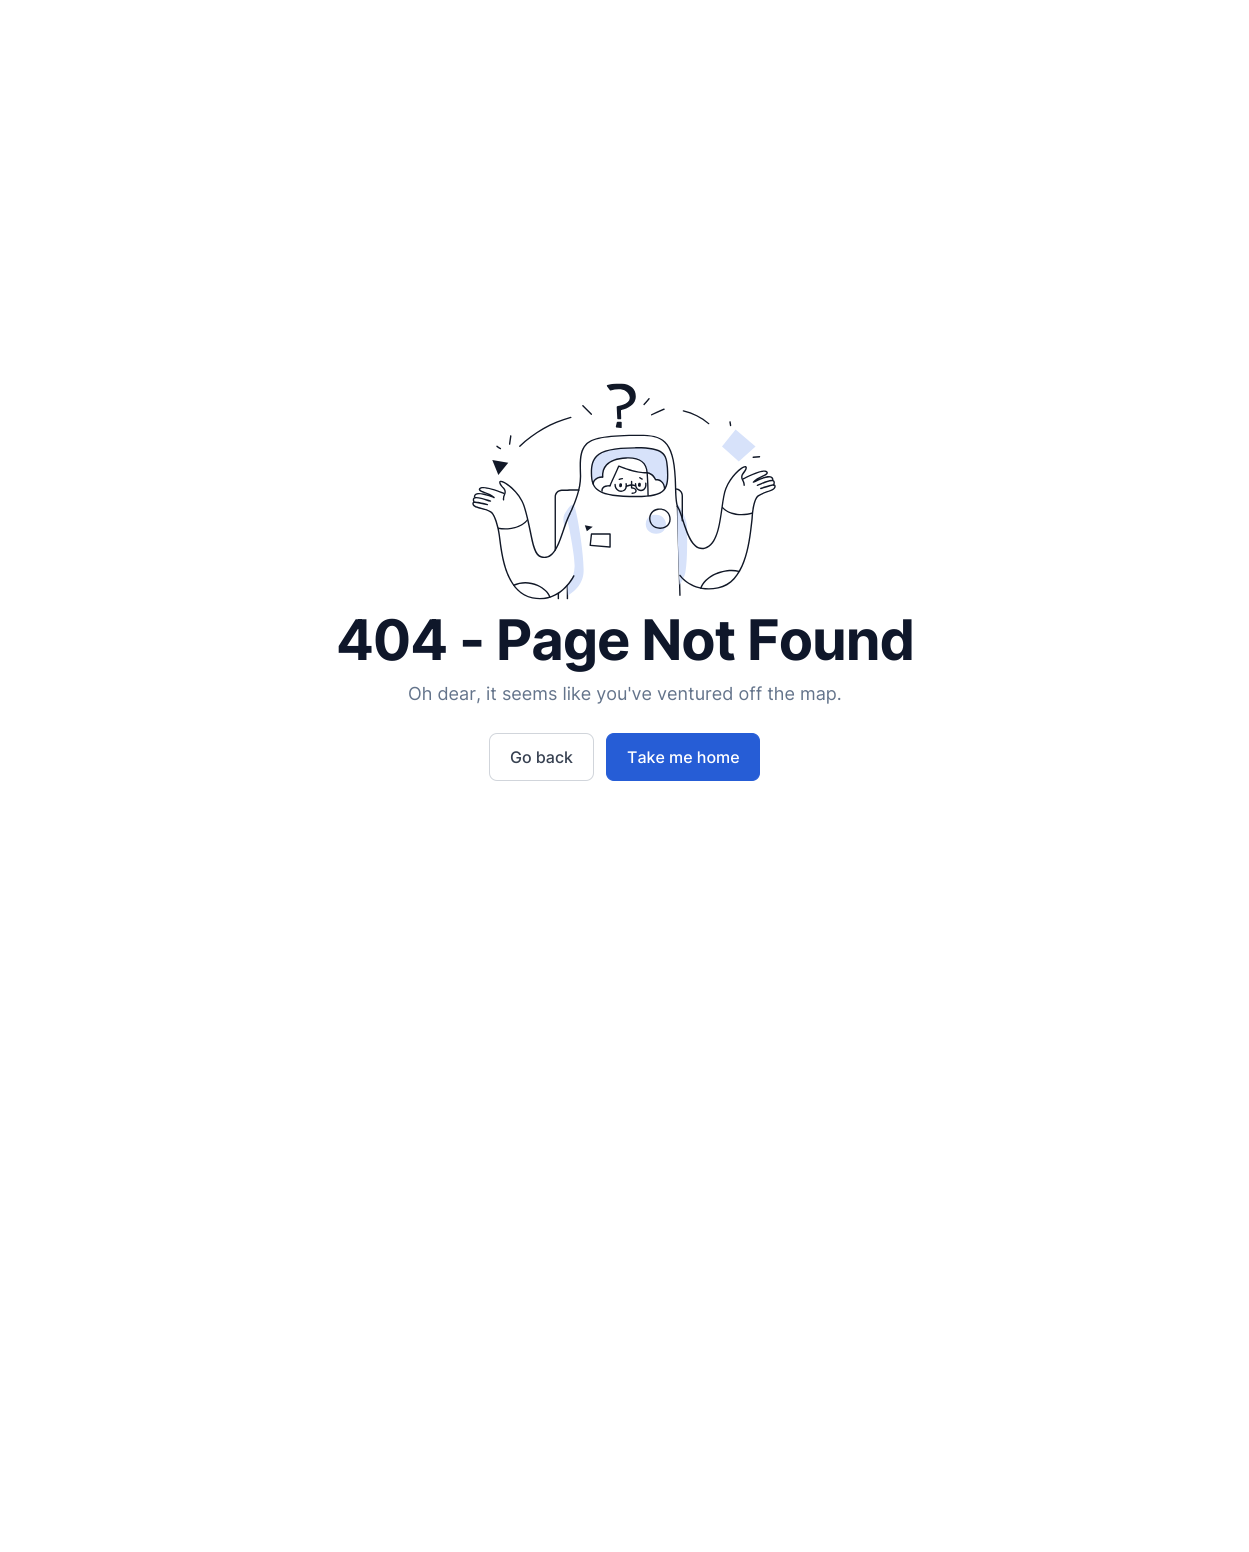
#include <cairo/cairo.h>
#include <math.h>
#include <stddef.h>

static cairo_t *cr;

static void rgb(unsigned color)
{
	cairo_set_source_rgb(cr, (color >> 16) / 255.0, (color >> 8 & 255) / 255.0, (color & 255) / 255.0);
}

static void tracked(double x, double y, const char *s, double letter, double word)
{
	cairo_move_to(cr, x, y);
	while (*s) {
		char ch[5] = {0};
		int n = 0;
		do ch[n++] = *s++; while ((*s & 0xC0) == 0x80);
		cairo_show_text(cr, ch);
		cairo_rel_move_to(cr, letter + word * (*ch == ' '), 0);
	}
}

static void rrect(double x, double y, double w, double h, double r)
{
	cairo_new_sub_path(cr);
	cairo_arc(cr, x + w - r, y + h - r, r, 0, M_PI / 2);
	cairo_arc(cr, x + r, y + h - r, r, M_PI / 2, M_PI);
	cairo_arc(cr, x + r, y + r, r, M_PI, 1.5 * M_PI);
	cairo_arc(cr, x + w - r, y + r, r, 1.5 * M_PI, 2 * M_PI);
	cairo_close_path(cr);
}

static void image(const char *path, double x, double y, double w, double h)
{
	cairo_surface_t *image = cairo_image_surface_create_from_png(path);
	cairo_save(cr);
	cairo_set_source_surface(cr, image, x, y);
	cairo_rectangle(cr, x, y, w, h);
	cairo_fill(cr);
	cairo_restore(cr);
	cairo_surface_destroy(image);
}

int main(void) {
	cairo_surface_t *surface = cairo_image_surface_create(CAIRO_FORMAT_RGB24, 1249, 1552);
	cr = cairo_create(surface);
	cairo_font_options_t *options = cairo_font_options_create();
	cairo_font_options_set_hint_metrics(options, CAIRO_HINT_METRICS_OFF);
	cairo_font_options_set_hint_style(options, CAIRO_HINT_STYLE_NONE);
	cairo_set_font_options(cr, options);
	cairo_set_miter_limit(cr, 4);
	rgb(0xffffff);
	cairo_paint(cr);
	image("img/1.png", 472, 383, 304, 217);
	rrect(489.5, 733.5, 104, 47, 7.5);
	rgb(0xd1d5db);
	cairo_set_line_width(cr, 1);
	cairo_stroke(cr);
	rgb(0x265dd6);
	rrect(606.5, 733.5, 153, 47, 7.5);
	cairo_fill_preserve(cr);
	cairo_stroke(cr);
	cairo_select_font_face(cr, "Inter", CAIRO_FONT_SLANT_NORMAL, CAIRO_FONT_WEIGHT_BOLD);
	cairo_set_font_size(cr, 56);
	rgb(0x0f172a);
	tracked(336, 660, "404 - Page Not Found", -1.1, 0);
	cairo_select_font_face(cr, "Inter", CAIRO_FONT_SLANT_NORMAL, CAIRO_FONT_WEIGHT_NORMAL);
	cairo_set_font_size(cr, 18);
	rgb(0x64748b);
	cairo_move_to(cr, 408, 700);
	cairo_show_text(cr, "Oh dear, it seems like you've ventured off the map.");
	cairo_select_font_face(cr, "Inter Medium", CAIRO_FONT_SLANT_NORMAL, CAIRO_FONT_WEIGHT_NORMAL);
	cairo_set_font_size(cr, 16);
	rgb(0x374151);
	cairo_move_to(cr, 510, 763);
	cairo_show_text(cr, "Go back");
	rgb(0xffffff);
	cairo_move_to(cr, 627, 763);
	cairo_show_text(cr, "Take me home");
	cairo_surface_write_to_png(surface, "page.png");
	cairo_font_options_destroy(options);
	cairo_destroy(cr);
	cairo_surface_destroy(surface);
	return 0;
}
